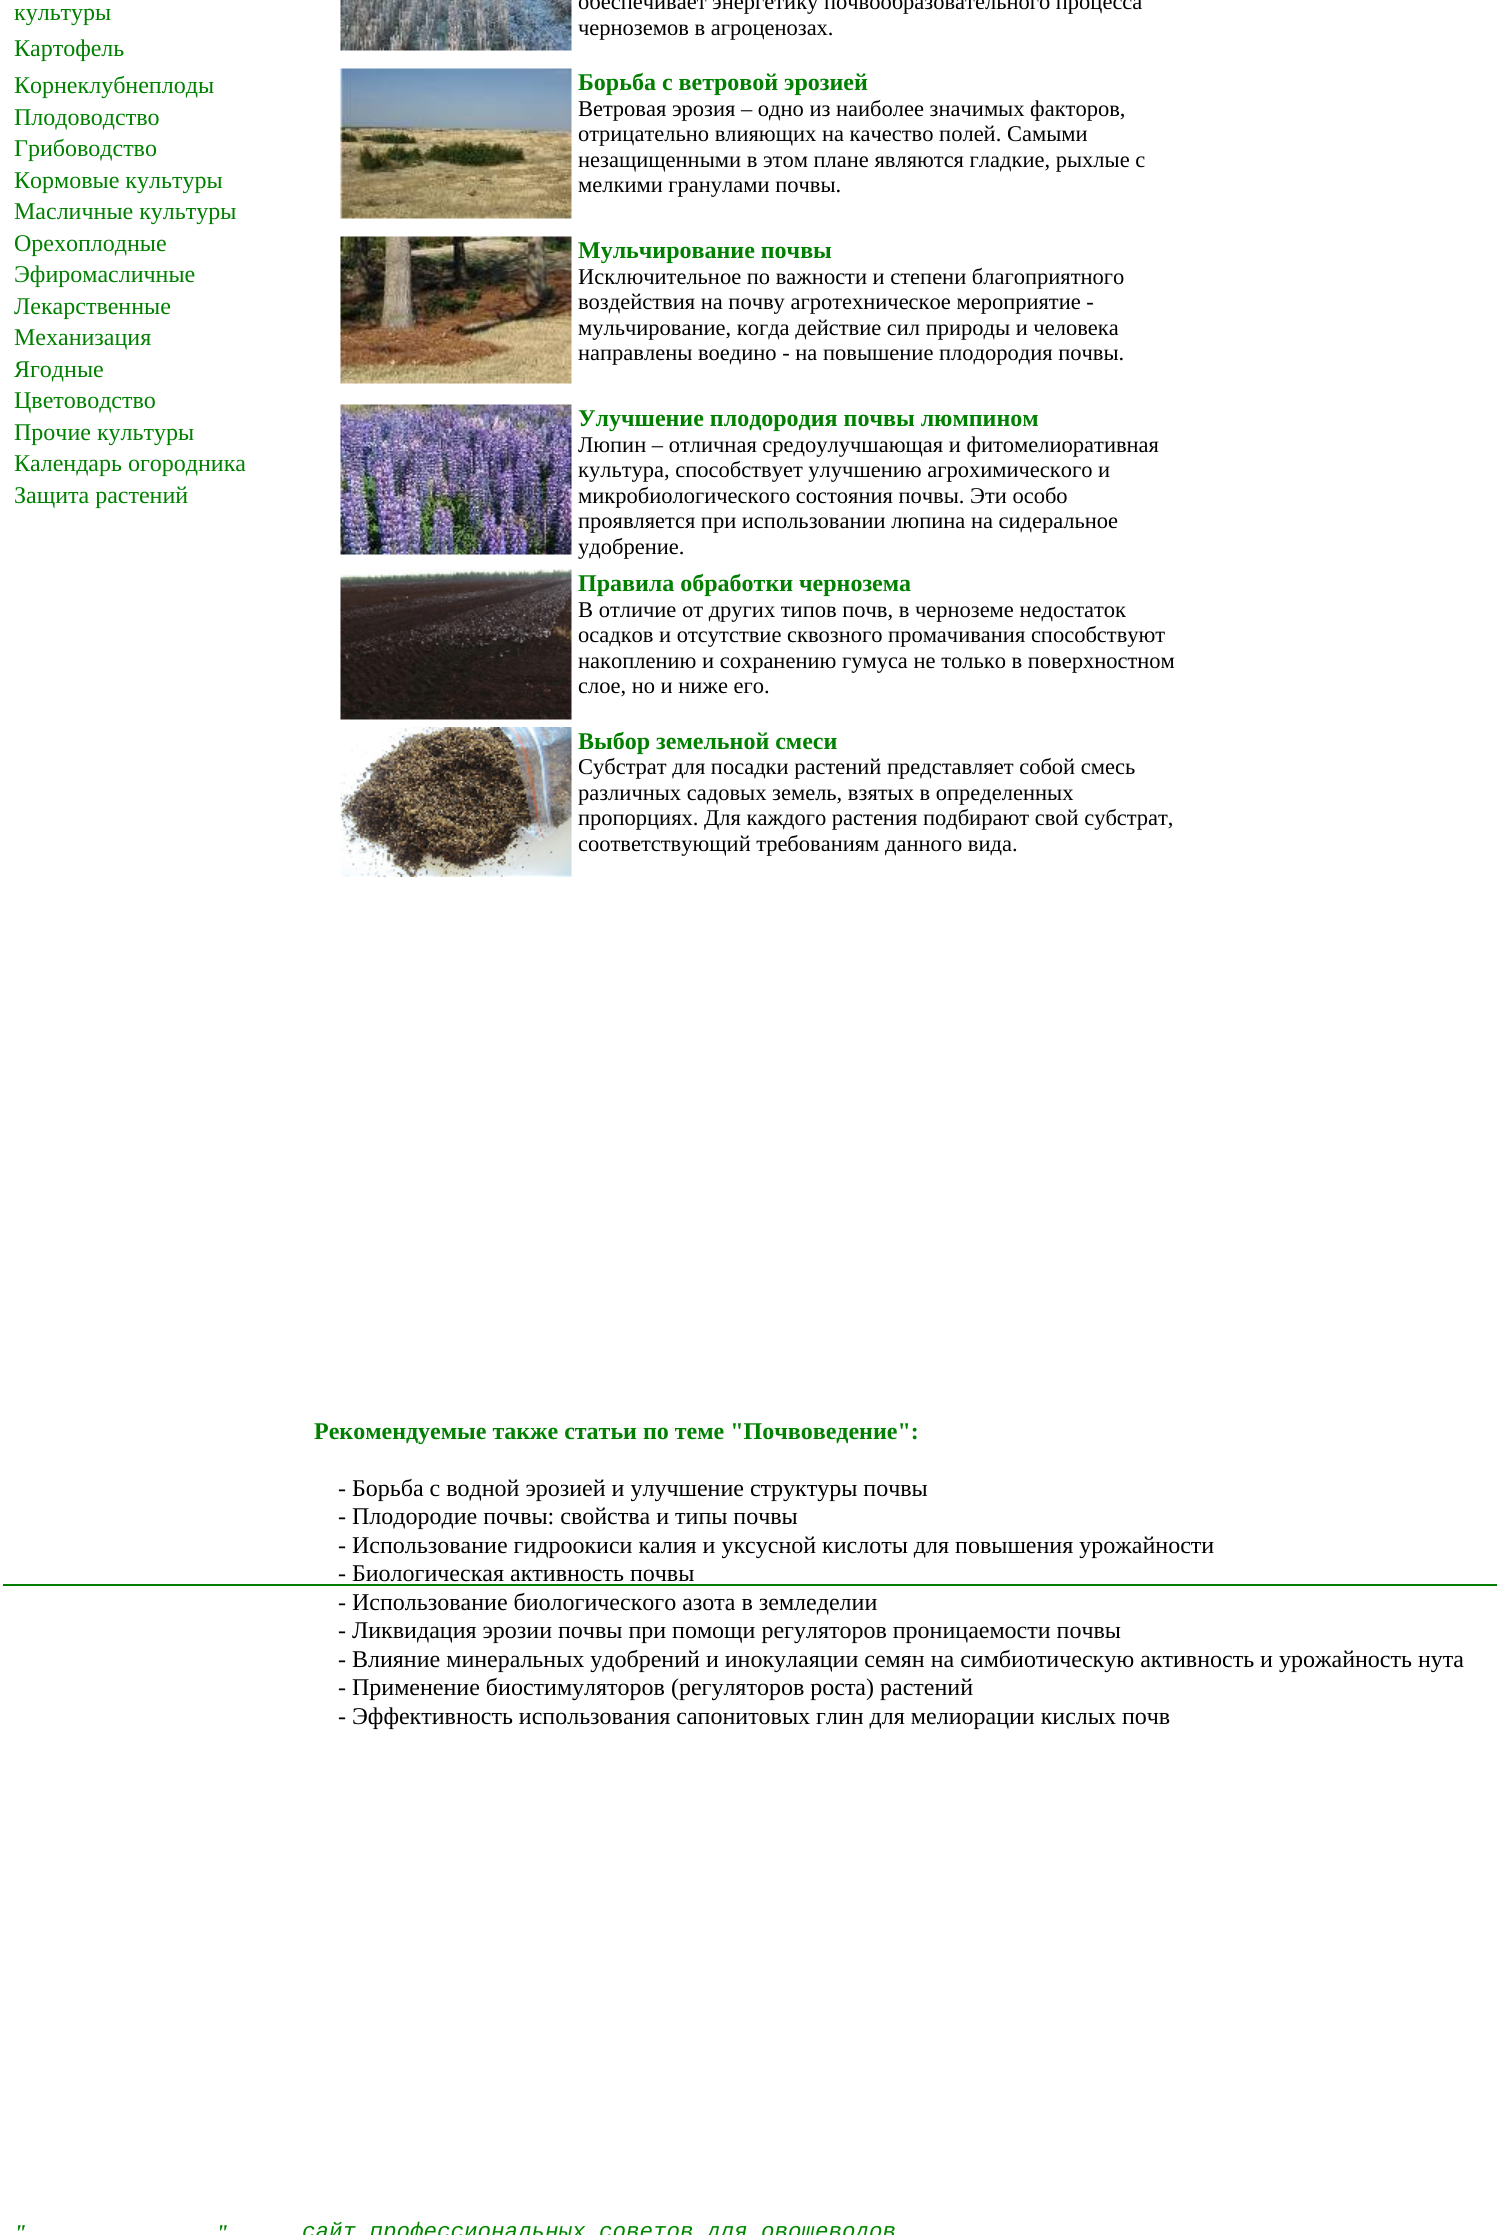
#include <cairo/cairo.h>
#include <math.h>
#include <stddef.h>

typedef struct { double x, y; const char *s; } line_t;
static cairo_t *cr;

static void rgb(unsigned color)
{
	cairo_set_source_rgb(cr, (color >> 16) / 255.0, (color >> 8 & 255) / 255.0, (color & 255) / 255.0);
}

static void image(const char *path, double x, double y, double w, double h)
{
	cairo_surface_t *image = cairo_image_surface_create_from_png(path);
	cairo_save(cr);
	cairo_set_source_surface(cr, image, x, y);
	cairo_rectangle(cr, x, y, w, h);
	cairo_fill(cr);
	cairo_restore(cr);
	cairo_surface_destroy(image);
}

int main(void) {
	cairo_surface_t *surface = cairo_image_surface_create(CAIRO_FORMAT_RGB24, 1501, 2235);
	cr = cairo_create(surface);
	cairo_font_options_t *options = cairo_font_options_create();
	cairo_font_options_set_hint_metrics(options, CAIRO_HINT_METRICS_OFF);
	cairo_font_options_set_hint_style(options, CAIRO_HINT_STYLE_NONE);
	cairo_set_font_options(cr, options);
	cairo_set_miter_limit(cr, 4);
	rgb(0xffffff);
	cairo_paint(cr);
	rgb(0x007f00);
	cairo_rectangle(cr, 3, 1584, 1494, 2);
	cairo_fill(cr);
	image("img/1.png", 340, 0, 232, 51);
	image("img/2.png", 340, 68, 232, 151);
	image("img/3.png", 340, 236, 232, 148);
	image("img/4.png", 340, 404, 232, 151);
	image("img/5.png", 340, 569, 232, 151);
	image("img/6.png", 340, 727, 232, 150);
	cairo_select_font_face(cr, "Liberation Serif", CAIRO_FONT_SLANT_NORMAL, CAIRO_FONT_WEIGHT_NORMAL);
	cairo_set_font_size(cr, 24);
	{
		static const line_t items[] = {
			{14, 20, "культуры"},
			{14, 56, "Картофель"},
			{14, 93, "Корнеклубнеплоды"},
			{14, 125, "Плодоводство"},
			{14, 156, "Грибоводство"},
			{14, 188, "Кормовые культуры"},
			{14, 219, "Масличные культуры"},
			{14, 251, "Орехоплодные"},
			{14, 282, "Эфиромасличные"},
			{14, 314, "Лекарственные"},
			{14, 345, "Механизация"},
			{14, 377, "Ягодные"},
			{14, 408, "Цветоводство"},
			{14, 440, "Прочие культуры"},
			{14, 471, "Календарь огородника"},
			{14, 503, "Защита растений"},
		};
		for (size_t i = 0; i < sizeof items / sizeof *items; i++) {
			cairo_move_to(cr, items[i].x, items[i].y);
			cairo_show_text(cr, items[i].s);
		}
	}
	cairo_set_font_size(cr, 22.5);
	rgb(0x000000);
	cairo_move_to(cr, 578, 9);
	cairo_show_text(cr, "обеспечивает энергетику почвообразовательного процесса");
	cairo_move_to(cr, 578, 35);
	cairo_show_text(cr, "черноземов в агроценозах.");
	cairo_select_font_face(cr, "Liberation Serif", CAIRO_FONT_SLANT_NORMAL, CAIRO_FONT_WEIGHT_BOLD);
	cairo_set_font_size(cr, 24);
	rgb(0x007f00);
	cairo_move_to(cr, 578, 90);
	cairo_show_text(cr, "Борьба с ветровой эрозией");
	cairo_select_font_face(cr, "Liberation Serif", CAIRO_FONT_SLANT_NORMAL, CAIRO_FONT_WEIGHT_NORMAL);
	cairo_set_font_size(cr, 22.5);
	rgb(0x000000);
	{
		static const line_t items[] = {
			{578, 116, "Ветровая эрозия – одно из наиболее значимых факторов,"},
			{578, 141, "отрицательно влияющих на качество полей. Самыми"},
			{578, 167, "незащищенными в этом плане являются гладкие, рыхлые с"},
			{578, 192, "мелкими гранулами почвы."},
		};
		for (size_t i = 0; i < sizeof items / sizeof *items; i++) {
			cairo_move_to(cr, items[i].x, items[i].y);
			cairo_show_text(cr, items[i].s);
		}
	}
	cairo_select_font_face(cr, "Liberation Serif", CAIRO_FONT_SLANT_NORMAL, CAIRO_FONT_WEIGHT_BOLD);
	cairo_set_font_size(cr, 24);
	rgb(0x007f00);
	cairo_move_to(cr, 578, 258);
	cairo_show_text(cr, "Мульчирование почвы");
	cairo_select_font_face(cr, "Liberation Serif", CAIRO_FONT_SLANT_NORMAL, CAIRO_FONT_WEIGHT_NORMAL);
	cairo_set_font_size(cr, 22.5);
	rgb(0x000000);
	{
		static const line_t items[] = {
			{578, 284, "Исключительное по важности и степени благоприятного"},
			{578, 309, "воздействия на почву агротехническое мероприятие -"},
			{578, 335, "мульчирование, когда действие сил природы и человека"},
			{578, 360, "направлены воедино - на повышение плодородия почвы."},
		};
		for (size_t i = 0; i < sizeof items / sizeof *items; i++) {
			cairo_move_to(cr, items[i].x, items[i].y);
			cairo_show_text(cr, items[i].s);
		}
	}
	cairo_select_font_face(cr, "Liberation Serif", CAIRO_FONT_SLANT_NORMAL, CAIRO_FONT_WEIGHT_BOLD);
	cairo_set_font_size(cr, 24);
	rgb(0x007f00);
	cairo_move_to(cr, 578, 426);
	cairo_show_text(cr, "Улучшение плодородия почвы люмпином");
	cairo_select_font_face(cr, "Liberation Serif", CAIRO_FONT_SLANT_NORMAL, CAIRO_FONT_WEIGHT_NORMAL);
	cairo_set_font_size(cr, 22.5);
	rgb(0x000000);
	{
		static const line_t items[] = {
			{578, 452, "Люпин – отличная средоулучшающая и фитомелиоративная"},
			{578, 477, "культура, способствует улучшению агрохимического и"},
			{578, 503, "микробиологического состояния почвы. Эти особо"},
			{578, 528, "проявляется при использовании люпина на сидеральное"},
			{578, 554, "удобрение."},
		};
		for (size_t i = 0; i < sizeof items / sizeof *items; i++) {
			cairo_move_to(cr, items[i].x, items[i].y);
			cairo_show_text(cr, items[i].s);
		}
	}
	cairo_select_font_face(cr, "Liberation Serif", CAIRO_FONT_SLANT_NORMAL, CAIRO_FONT_WEIGHT_BOLD);
	cairo_set_font_size(cr, 24);
	rgb(0x007f00);
	cairo_move_to(cr, 578, 591);
	cairo_show_text(cr, "Правила обработки чернозема");
	cairo_select_font_face(cr, "Liberation Serif", CAIRO_FONT_SLANT_NORMAL, CAIRO_FONT_WEIGHT_NORMAL);
	cairo_set_font_size(cr, 22.5);
	rgb(0x000000);
	{
		static const line_t items[] = {
			{578, 617, "В отличие от других типов почв, в черноземе недостаток"},
			{578, 642, "осадков и отсутствие сквозного промачивания способствуют"},
			{578, 668, "накоплению и сохранению гумуса не только в поверхностном"},
			{578, 693, "слое, но и ниже его."},
		};
		for (size_t i = 0; i < sizeof items / sizeof *items; i++) {
			cairo_move_to(cr, items[i].x, items[i].y);
			cairo_show_text(cr, items[i].s);
		}
	}
	cairo_select_font_face(cr, "Liberation Serif", CAIRO_FONT_SLANT_NORMAL, CAIRO_FONT_WEIGHT_BOLD);
	cairo_set_font_size(cr, 24);
	rgb(0x007f00);
	cairo_move_to(cr, 578, 749);
	cairo_show_text(cr, "Выбор земельной смеси");
	cairo_select_font_face(cr, "Liberation Serif", CAIRO_FONT_SLANT_NORMAL, CAIRO_FONT_WEIGHT_NORMAL);
	cairo_set_font_size(cr, 22.5);
	rgb(0x000000);
	{
		static const line_t items[] = {
			{578, 774, "Субстрат для посадки растений представляет собой смесь"},
			{578, 800, "различных садовых земель, взятых в определенных"},
			{578, 825, "пропорциях. Для каждого растения подбирают свой субстрат,"},
			{578, 851, "соответствующий требованиям данного вида."},
		};
		for (size_t i = 0; i < sizeof items / sizeof *items; i++) {
			cairo_move_to(cr, items[i].x, items[i].y);
			cairo_show_text(cr, items[i].s);
		}
	}
	cairo_select_font_face(cr, "Liberation Serif", CAIRO_FONT_SLANT_NORMAL, CAIRO_FONT_WEIGHT_BOLD);
	cairo_set_font_size(cr, 24);
	rgb(0x007f00);
	cairo_move_to(cr, 314, 1439);
	cairo_show_text(cr, "Рекомендуемые также статьи по теме \"Почвоведение\":");
	cairo_select_font_face(cr, "Liberation Serif", CAIRO_FONT_SLANT_NORMAL, CAIRO_FONT_WEIGHT_NORMAL);
	rgb(0x000000);
	{
		static const line_t items[] = {
			{338, 1496, "- Борьба с водной эрозией и улучшение структуры почвы"},
			{338, 1524, "- Плодородие почвы: свойства и типы почвы"},
			{338, 1553, "- Использование гидроокиси калия и уксусной кислоты для повышения урожайности"},
			{338, 1581, "- Биологическая активность почвы"},
			{338, 1610, "- Использование биологического азота в земледелии"},
			{338, 1638, "- Ликвидация эрозии почвы при помощи регуляторов проницаемости почвы"},
			{338, 1667, "- Влияние минеральных удобрений и инокулаяции семян на симбиотическую активность и урожайность нута"},
			{338, 1695, "- Применение биостимуляторов (регуляторов роста) растений"},
			{338, 1724, "- Эффективность использования сапонитовых глин для мелиорации кислых почв"},
		};
		for (size_t i = 0; i < sizeof items / sizeof *items; i++) {
			cairo_move_to(cr, items[i].x, items[i].y);
			cairo_show_text(cr, items[i].s);
		}
	}
	cairo_select_font_face(cr, "Liberation Serif", CAIRO_FONT_SLANT_ITALIC, CAIRO_FONT_WEIGHT_BOLD);
	cairo_set_font_size(cr, 22.5);
	rgb(0x007f00);
	cairo_move_to(cr, 14, 2240);
	cairo_show_text(cr, "\"");
	cairo_move_to(cr, 216, 2240);
	cairo_show_text(cr, "\"");
	cairo_select_font_face(cr, "Liberation Mono", CAIRO_FONT_SLANT_ITALIC, CAIRO_FONT_WEIGHT_NORMAL);
	rgb(0x008600);
	cairo_move_to(cr, 302, 2238);
	cairo_show_text(cr, "сайт профессиональных советов для овощеводов");
	cairo_surface_write_to_png(surface, "page.png");
	cairo_font_options_destroy(options);
	cairo_destroy(cr);
	cairo_surface_destroy(surface);
	return 0;
}
